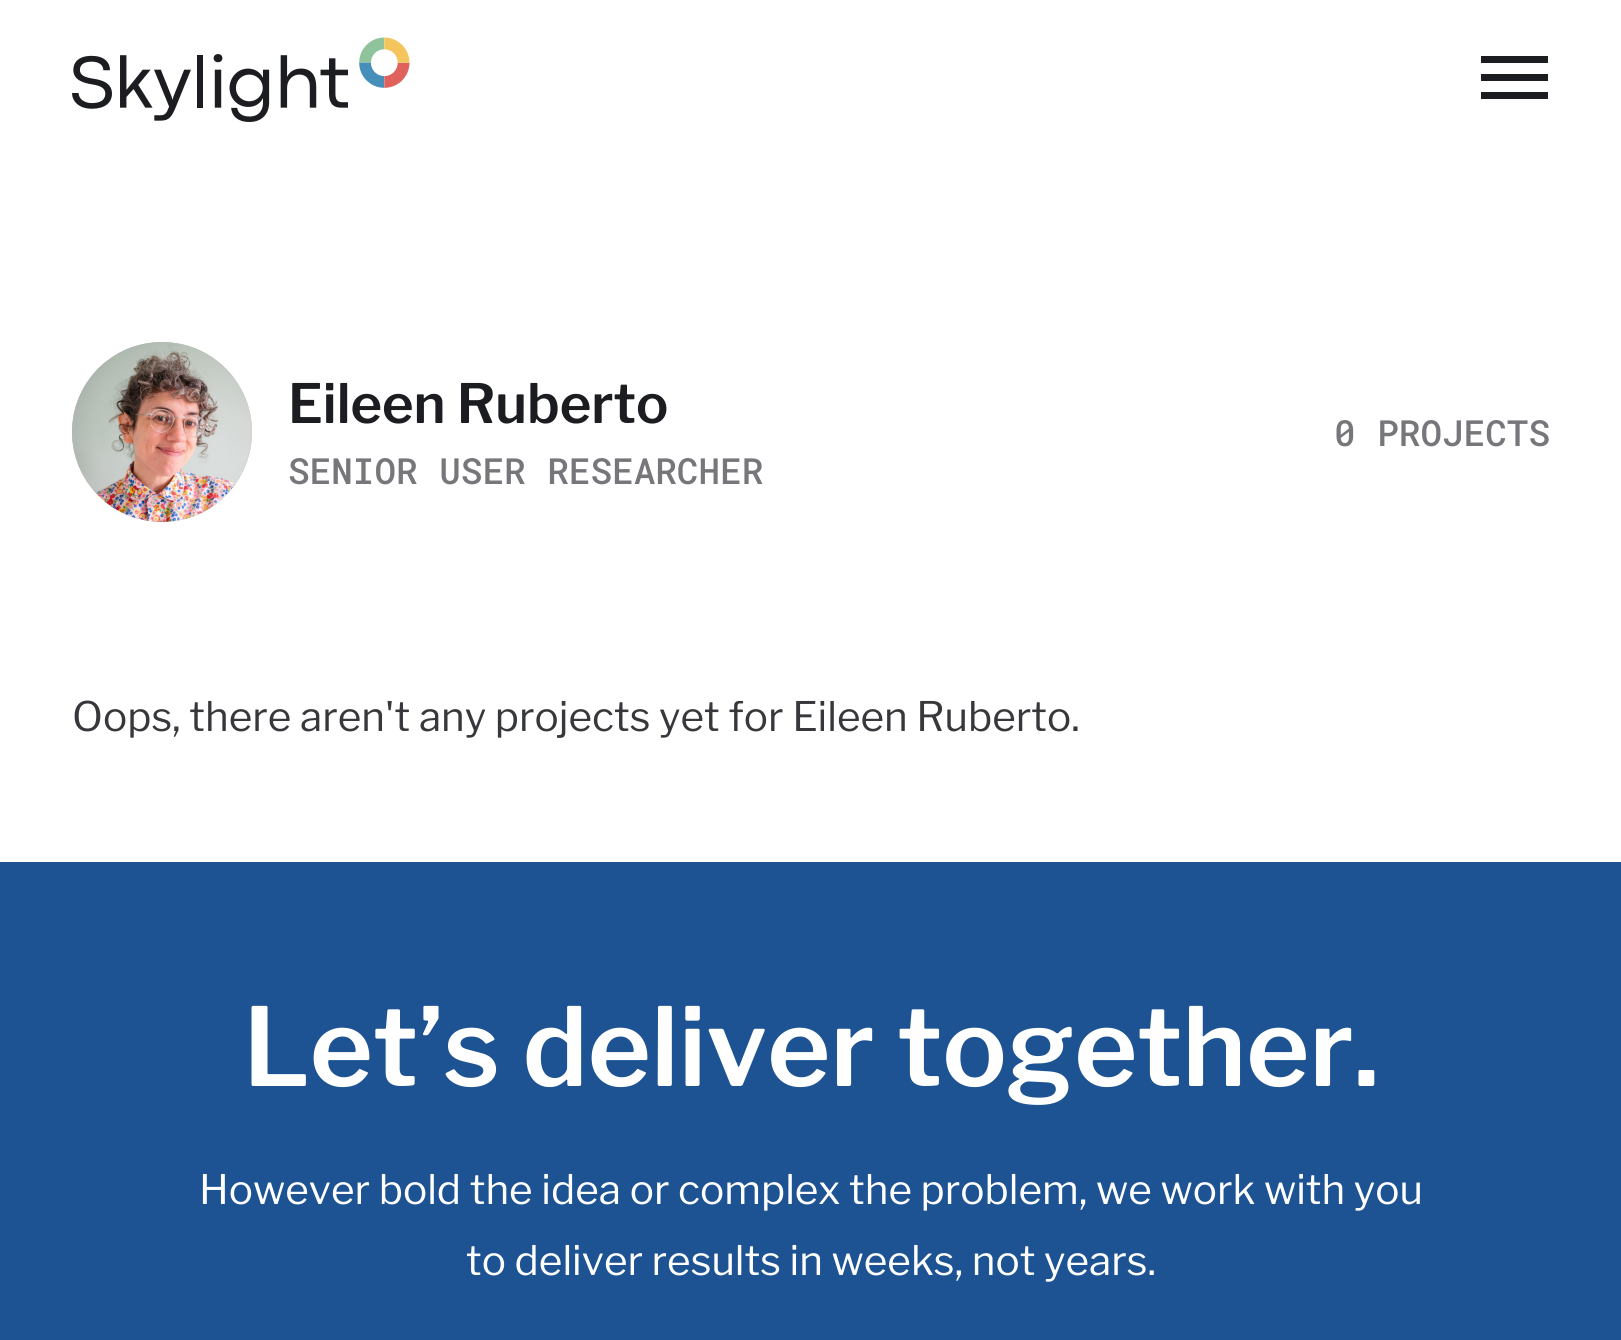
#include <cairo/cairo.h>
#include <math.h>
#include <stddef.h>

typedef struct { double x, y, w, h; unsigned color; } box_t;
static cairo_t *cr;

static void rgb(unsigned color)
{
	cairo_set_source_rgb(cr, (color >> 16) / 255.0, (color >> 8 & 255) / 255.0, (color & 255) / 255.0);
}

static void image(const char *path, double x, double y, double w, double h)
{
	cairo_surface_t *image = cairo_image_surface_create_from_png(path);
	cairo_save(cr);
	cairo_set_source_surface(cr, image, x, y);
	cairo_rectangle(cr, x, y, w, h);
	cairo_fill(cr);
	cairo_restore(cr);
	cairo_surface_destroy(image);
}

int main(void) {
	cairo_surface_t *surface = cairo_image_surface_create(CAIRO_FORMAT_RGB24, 1621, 1340);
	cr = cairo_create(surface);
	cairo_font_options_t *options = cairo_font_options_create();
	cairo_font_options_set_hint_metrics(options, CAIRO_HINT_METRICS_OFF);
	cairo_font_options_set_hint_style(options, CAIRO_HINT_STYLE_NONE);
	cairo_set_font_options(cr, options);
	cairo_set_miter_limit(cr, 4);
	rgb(0xffffff);
	cairo_paint(cr);
	image("img/1.png", 72, 37, 338, 85);
	{
		static const box_t items[] = {
			{1481, 74, 67, 7, 0x1c1d20},
			{1481, 56, 67, 7, 0x1c1d20},
			{1481, 92, 67, 7, 0x1c1d20},
		};
		for (size_t i = 0; i < sizeof items / sizeof *items; i++) {
			rgb(items[i].color);
			cairo_rectangle(cr, items[i].x, items[i].y, items[i].w, items[i].h);
			cairo_fill(cr);
		}
	}
	rgb(0xbbbbbd);
	cairo_arc(cr, 162, 432, 90, 0, 2 * M_PI);
	cairo_fill(cr);
	image("img/2.png", 72, 342, 180, 180);
	rgb(0x1d5392);
	cairo_rectangle(cr, 0, 862, 1621, 478);
	cairo_fill(cr);
	cairo_select_font_face(cr, "Libre Franklin SemiBold", CAIRO_FONT_SLANT_NORMAL, CAIRO_FONT_WEIGHT_NORMAL);
	cairo_set_font_size(cr, 54);
	rgb(0x1c1d20);
	cairo_move_to(cr, 288, 423);
	cairo_show_text(cr, "Eileen Ruberto");
	cairo_select_font_face(cr, "Roboto Mono Medium", CAIRO_FONT_SLANT_NORMAL, CAIRO_FONT_WEIGHT_NORMAL);
	cairo_set_font_size(cr, 36);
	rgb(0x76767b);
	cairo_move_to(cr, 288, 484);
	cairo_show_text(cr, "SENIOR USER RESEARCHER");
	cairo_move_to(cr, 1334, 446);
	cairo_show_text(cr, "0 PROJECTS");
	cairo_select_font_face(cr, "Libre Franklin", CAIRO_FONT_SLANT_NORMAL, CAIRO_FONT_WEIGHT_NORMAL);
	cairo_set_font_size(cr, 40.5);
	rgb(0x37383b);
	cairo_move_to(cr, 72, 731);
	cairo_show_text(cr, "Oops, there aren't any projects yet for Eileen Ruberto.");
	cairo_select_font_face(cr, "Libre Franklin SemiBold", CAIRO_FONT_SLANT_NORMAL, CAIRO_FONT_WEIGHT_NORMAL);
	cairo_set_font_size(cr, 108);
	rgb(0xffffff);
	cairo_move_to(cr, 243, 1086);
	cairo_show_text(cr, "Let’s deliver together.");
	cairo_select_font_face(cr, "Libre Franklin", CAIRO_FONT_SLANT_NORMAL, CAIRO_FONT_WEIGHT_NORMAL);
	cairo_set_font_size(cr, 40.5);
	cairo_move_to(cr, 199, 1204);
	cairo_show_text(cr, "However bold the idea or complex the problem, we work with you");
	cairo_move_to(cr, 466, 1275);
	cairo_show_text(cr, "to deliver results in weeks, not years.");
	cairo_surface_write_to_png(surface, "page.png");
	cairo_font_options_destroy(options);
	cairo_destroy(cr);
	cairo_surface_destroy(surface);
	return 0;
}
